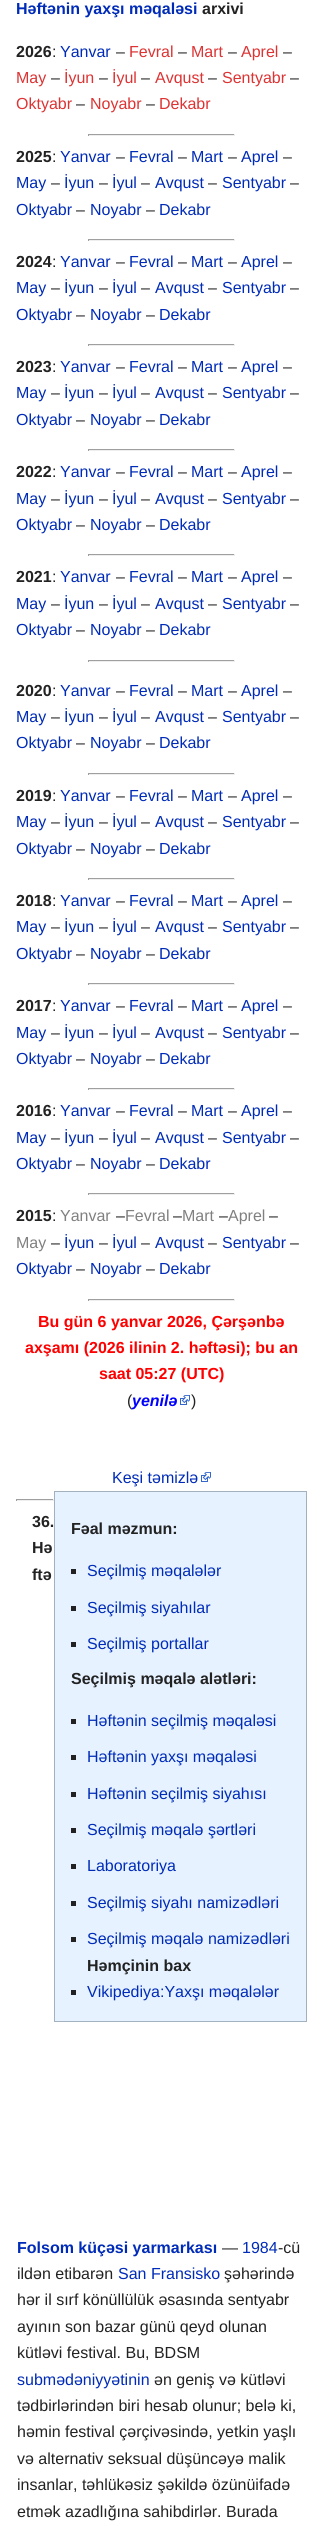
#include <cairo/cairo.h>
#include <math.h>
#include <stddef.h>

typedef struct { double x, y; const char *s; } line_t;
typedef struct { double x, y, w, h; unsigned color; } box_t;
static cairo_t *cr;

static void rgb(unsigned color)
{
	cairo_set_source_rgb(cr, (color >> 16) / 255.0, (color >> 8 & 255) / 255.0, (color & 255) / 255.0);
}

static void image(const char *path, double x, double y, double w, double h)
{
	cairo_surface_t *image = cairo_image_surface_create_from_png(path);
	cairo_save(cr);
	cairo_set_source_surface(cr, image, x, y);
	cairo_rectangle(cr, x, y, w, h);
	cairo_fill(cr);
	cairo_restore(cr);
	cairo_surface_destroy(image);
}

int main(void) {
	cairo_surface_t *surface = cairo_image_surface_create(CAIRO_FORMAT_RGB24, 323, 2526);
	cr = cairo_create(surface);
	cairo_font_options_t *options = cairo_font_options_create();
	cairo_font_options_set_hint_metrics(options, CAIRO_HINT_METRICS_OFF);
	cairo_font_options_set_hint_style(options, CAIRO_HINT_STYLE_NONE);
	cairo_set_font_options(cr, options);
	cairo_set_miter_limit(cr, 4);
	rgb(0xffffff);
	cairo_paint(cr);
	{
		static const box_t items[] = {
			{88, 134, 147, 1, 0x9f9f9f},
			{234, 134, 1, 2, 0xeeeeee},
			{88, 135, 147, 1, 0xeeeeee},
			{88, 134, 1, 2, 0x9f9f9f},
			{88, 239, 147, 1, 0x9f9f9f},
			{234, 239, 1, 2, 0xeeeeee},
			{88, 240, 147, 1, 0xeeeeee},
			{88, 239, 1, 2, 0x9f9f9f},
			{88, 344, 147, 1, 0x9f9f9f},
			{234, 344, 1, 2, 0xeeeeee},
			{88, 345, 147, 1, 0xeeeeee},
			{88, 344, 1, 2, 0x9f9f9f},
			{88, 449, 147, 1, 0x9f9f9f},
			{234, 449, 1, 2, 0xeeeeee},
			{88, 450, 147, 1, 0xeeeeee},
			{88, 449, 1, 2, 0x9f9f9f},
			{88, 554, 147, 1, 0x9f9f9f},
			{234, 554, 1, 2, 0xeeeeee},
			{88, 555, 147, 1, 0xeeeeee},
			{88, 554, 1, 2, 0x9f9f9f},
			{88, 660, 147, 1, 0x9f9f9f},
			{234, 660, 1, 2, 0xeeeeee},
			{88, 661, 147, 1, 0xeeeeee},
			{88, 660, 1, 2, 0x9f9f9f},
			{88, 773, 147, 1, 0x9f9f9f},
			{234, 773, 1, 2, 0xeeeeee},
			{88, 774, 147, 1, 0xeeeeee},
			{88, 773, 1, 2, 0x9f9f9f},
			{88, 878, 147, 1, 0x9f9f9f},
			{234, 878, 1, 2, 0xeeeeee},
			{88, 879, 147, 1, 0xeeeeee},
			{88, 878, 1, 2, 0x9f9f9f},
			{88, 983, 147, 1, 0x9f9f9f},
			{234, 983, 1, 2, 0xeeeeee},
			{88, 984, 147, 1, 0xeeeeee},
			{88, 983, 1, 2, 0x9f9f9f},
			{88, 1088, 147, 1, 0x9f9f9f},
			{234, 1088, 1, 2, 0xeeeeee},
			{88, 1089, 147, 1, 0xeeeeee},
			{88, 1088, 1, 2, 0x9f9f9f},
			{88, 1193, 147, 1, 0x9f9f9f},
			{234, 1193, 1, 2, 0xeeeeee},
			{88, 1194, 147, 1, 0xeeeeee},
			{88, 1193, 1, 2, 0x9f9f9f},
			{88, 1299, 147, 1, 0x9f9f9f},
			{234, 1299, 1, 2, 0xeeeeee},
			{88, 1300, 147, 1, 0xeeeeee},
			{88, 1299, 1, 2, 0x9f9f9f},
		};
		for (size_t i = 0; i < sizeof items / sizeof *items; i++) {
			rgb(items[i].color);
			cairo_rectangle(cr, items[i].x, items[i].y, items[i].w, items[i].h);
			cairo_fill(cr);
		}
	}
	image("img/1.png", 180, 1395, 10, 10);
	image("img/1.png", 201, 1472, 10, 10);
	{
		static const box_t items[] = {
			{16, 1499, 38, 1, 0x9f9f9f},
			{53, 1499, 1, 2, 0xeeeeee},
			{16, 1500, 38, 1, 0xeeeeee},
			{16, 1499, 1, 2, 0x9f9f9f},
		};
		for (size_t i = 0; i < sizeof items / sizeof *items; i++) {
			rgb(items[i].color);
			cairo_rectangle(cr, items[i].x, items[i].y, items[i].w, items[i].h);
			cairo_fill(cr);
		}
	}
	rgb(0xe6f2ff);
	cairo_rectangle(cr, 54.5, 1491.5, 252, 530);
	cairo_fill_preserve(cr);
	rgb(0xa3b1bf);
	cairo_set_line_width(cr, 1);
	cairo_stroke(cr);
	{
		static const box_t items[] = {
			{71, 1569, 5, 5, 0x222222},
			{71, 1606, 5, 5, 0x222222},
			{71, 1642, 5, 5, 0x222222},
			{71, 1719, 5, 5, 0x222222},
			{71, 1755, 5, 5, 0x222222},
			{71, 1792, 5, 5, 0x222222},
			{71, 1828, 5, 5, 0x222222},
			{71, 1864, 5, 5, 0x222222},
			{71, 1901, 5, 5, 0x222222},
			{71, 1937, 5, 5, 0x222222},
			{71, 1990, 5, 5, 0x222222},
		};
		for (size_t i = 0; i < sizeof items / sizeof *items; i++) {
			rgb(items[i].color);
			cairo_rectangle(cr, items[i].x, items[i].y, items[i].w, items[i].h);
			cairo_fill(cr);
		}
	}
	cairo_select_font_face(cr, "Liberation Sans", CAIRO_FONT_SLANT_NORMAL, CAIRO_FONT_WEIGHT_BOLD);
	cairo_set_font_size(cr, 16);
	rgb(0x002bb8);
	cairo_move_to(cr, 16, 14);
	cairo_show_text(cr, "Həftənin yaxşı məqaləsi");
	rgb(0x222222);
	cairo_move_to(cr, 202, 14);
	cairo_show_text(cr, "arxivi");
	cairo_move_to(cr, 16, 57);
	cairo_show_text(cr, "2026");
	cairo_select_font_face(cr, "Liberation Sans", CAIRO_FONT_SLANT_NORMAL, CAIRO_FONT_WEIGHT_NORMAL);
	cairo_move_to(cr, 52, 57);
	cairo_show_text(cr, ":");
	rgb(0x002bb8);
	cairo_move_to(cr, 60, 57);
	cairo_show_text(cr, "Yanvar");
	rgb(0x222222);
	cairo_move_to(cr, 116, 57);
	cairo_show_text(cr, "–");
	rgb(0xdd3333);
	cairo_move_to(cr, 129, 57);
	cairo_show_text(cr, "Fevral");
	rgb(0x222222);
	cairo_move_to(cr, 178, 57);
	cairo_show_text(cr, "–");
	rgb(0xdd3333);
	cairo_move_to(cr, 191, 57);
	cairo_show_text(cr, "Mart");
	rgb(0x222222);
	cairo_move_to(cr, 228, 57);
	cairo_show_text(cr, "–");
	rgb(0xdd3333);
	cairo_move_to(cr, 241, 57);
	cairo_show_text(cr, "Aprel");
	rgb(0x222222);
	cairo_move_to(cr, 283, 57);
	cairo_show_text(cr, "–");
	rgb(0xdd3333);
	cairo_move_to(cr, 16, 83);
	cairo_show_text(cr, "May");
	rgb(0x222222);
	cairo_move_to(cr, 51, 83);
	cairo_show_text(cr, "–");
	rgb(0xdd3333);
	cairo_move_to(cr, 64, 83);
	cairo_show_text(cr, "İyun");
	rgb(0x222222);
	cairo_move_to(cr, 99, 83);
	cairo_show_text(cr, "–");
	rgb(0xdd3333);
	cairo_move_to(cr, 112, 83);
	cairo_show_text(cr, "İyul");
	rgb(0x222222);
	cairo_move_to(cr, 141, 83);
	cairo_show_text(cr, "–");
	rgb(0xdd3333);
	cairo_move_to(cr, 155, 83);
	cairo_show_text(cr, "Avqust");
	rgb(0x222222);
	cairo_move_to(cr, 208, 83);
	cairo_show_text(cr, "–");
	rgb(0xdd3333);
	cairo_move_to(cr, 222, 83);
	cairo_show_text(cr, "Sentyabr");
	rgb(0x222222);
	cairo_move_to(cr, 290, 83);
	cairo_show_text(cr, "–");
	rgb(0xdd3333);
	cairo_move_to(cr, 16, 109);
	cairo_show_text(cr, "Oktyabr");
	rgb(0x222222);
	cairo_move_to(cr, 76, 109);
	cairo_show_text(cr, "–");
	rgb(0xdd3333);
	cairo_move_to(cr, 90, 109);
	cairo_show_text(cr, "Noyabr");
	rgb(0x222222);
	cairo_move_to(cr, 146, 109);
	cairo_show_text(cr, "–");
	rgb(0xdd3333);
	cairo_move_to(cr, 159, 109);
	cairo_show_text(cr, "Dekabr");
	cairo_select_font_face(cr, "Liberation Sans", CAIRO_FONT_SLANT_NORMAL, CAIRO_FONT_WEIGHT_BOLD);
	rgb(0x222222);
	cairo_move_to(cr, 16, 162);
	cairo_show_text(cr, "2025");
	cairo_select_font_face(cr, "Liberation Sans", CAIRO_FONT_SLANT_NORMAL, CAIRO_FONT_WEIGHT_NORMAL);
	cairo_move_to(cr, 52, 162);
	cairo_show_text(cr, ":");
	rgb(0x002bb8);
	cairo_move_to(cr, 60, 162);
	cairo_show_text(cr, "Yanvar");
	rgb(0x222222);
	cairo_move_to(cr, 116, 162);
	cairo_show_text(cr, "–");
	rgb(0x002bb8);
	cairo_move_to(cr, 129, 162);
	cairo_show_text(cr, "Fevral");
	rgb(0x222222);
	cairo_move_to(cr, 178, 162);
	cairo_show_text(cr, "–");
	rgb(0x002bb8);
	cairo_move_to(cr, 191, 162);
	cairo_show_text(cr, "Mart");
	rgb(0x222222);
	cairo_move_to(cr, 228, 162);
	cairo_show_text(cr, "–");
	rgb(0x002bb8);
	cairo_move_to(cr, 241, 162);
	cairo_show_text(cr, "Aprel");
	rgb(0x222222);
	cairo_move_to(cr, 283, 162);
	cairo_show_text(cr, "–");
	rgb(0x002bb8);
	cairo_move_to(cr, 16, 188);
	cairo_show_text(cr, "May");
	rgb(0x222222);
	cairo_move_to(cr, 51, 188);
	cairo_show_text(cr, "–");
	rgb(0x002bb8);
	cairo_move_to(cr, 64, 188);
	cairo_show_text(cr, "İyun");
	rgb(0x222222);
	cairo_move_to(cr, 99, 188);
	cairo_show_text(cr, "–");
	rgb(0x002bb8);
	cairo_move_to(cr, 112, 188);
	cairo_show_text(cr, "İyul");
	rgb(0x222222);
	cairo_move_to(cr, 141, 188);
	cairo_show_text(cr, "–");
	rgb(0x002bb8);
	cairo_move_to(cr, 155, 188);
	cairo_show_text(cr, "Avqust");
	rgb(0x222222);
	cairo_move_to(cr, 208, 188);
	cairo_show_text(cr, "–");
	rgb(0x002bb8);
	cairo_move_to(cr, 222, 188);
	cairo_show_text(cr, "Sentyabr");
	rgb(0x222222);
	cairo_move_to(cr, 290, 188);
	cairo_show_text(cr, "–");
	rgb(0x002bb8);
	cairo_move_to(cr, 16, 215);
	cairo_show_text(cr, "Oktyabr");
	rgb(0x222222);
	cairo_move_to(cr, 76, 215);
	cairo_show_text(cr, "–");
	rgb(0x002bb8);
	cairo_move_to(cr, 90, 215);
	cairo_show_text(cr, "Noyabr");
	rgb(0x222222);
	cairo_move_to(cr, 146, 215);
	cairo_show_text(cr, "–");
	rgb(0x002bb8);
	cairo_move_to(cr, 159, 215);
	cairo_show_text(cr, "Dekabr");
	cairo_select_font_face(cr, "Liberation Sans", CAIRO_FONT_SLANT_NORMAL, CAIRO_FONT_WEIGHT_BOLD);
	rgb(0x222222);
	cairo_move_to(cr, 16, 267);
	cairo_show_text(cr, "2024");
	cairo_select_font_face(cr, "Liberation Sans", CAIRO_FONT_SLANT_NORMAL, CAIRO_FONT_WEIGHT_NORMAL);
	cairo_move_to(cr, 52, 267);
	cairo_show_text(cr, ":");
	rgb(0x002bb8);
	cairo_move_to(cr, 60, 267);
	cairo_show_text(cr, "Yanvar");
	rgb(0x222222);
	cairo_move_to(cr, 116, 267);
	cairo_show_text(cr, "–");
	rgb(0x002bb8);
	cairo_move_to(cr, 129, 267);
	cairo_show_text(cr, "Fevral");
	rgb(0x222222);
	cairo_move_to(cr, 178, 267);
	cairo_show_text(cr, "–");
	rgb(0x002bb8);
	cairo_move_to(cr, 191, 267);
	cairo_show_text(cr, "Mart");
	rgb(0x222222);
	cairo_move_to(cr, 228, 267);
	cairo_show_text(cr, "–");
	rgb(0x002bb8);
	cairo_move_to(cr, 241, 267);
	cairo_show_text(cr, "Aprel");
	rgb(0x222222);
	cairo_move_to(cr, 283, 267);
	cairo_show_text(cr, "–");
	rgb(0x002bb8);
	cairo_move_to(cr, 16, 293);
	cairo_show_text(cr, "May");
	rgb(0x222222);
	cairo_move_to(cr, 51, 293);
	cairo_show_text(cr, "–");
	rgb(0x002bb8);
	cairo_move_to(cr, 64, 293);
	cairo_show_text(cr, "İyun");
	rgb(0x222222);
	cairo_move_to(cr, 99, 293);
	cairo_show_text(cr, "–");
	rgb(0x002bb8);
	cairo_move_to(cr, 112, 293);
	cairo_show_text(cr, "İyul");
	rgb(0x222222);
	cairo_move_to(cr, 141, 293);
	cairo_show_text(cr, "–");
	rgb(0x002bb8);
	cairo_move_to(cr, 155, 293);
	cairo_show_text(cr, "Avqust");
	rgb(0x222222);
	cairo_move_to(cr, 208, 293);
	cairo_show_text(cr, "–");
	rgb(0x002bb8);
	cairo_move_to(cr, 222, 293);
	cairo_show_text(cr, "Sentyabr");
	rgb(0x222222);
	cairo_move_to(cr, 290, 293);
	cairo_show_text(cr, "–");
	rgb(0x002bb8);
	cairo_move_to(cr, 16, 320);
	cairo_show_text(cr, "Oktyabr");
	rgb(0x222222);
	cairo_move_to(cr, 76, 320);
	cairo_show_text(cr, "–");
	rgb(0x002bb8);
	cairo_move_to(cr, 90, 320);
	cairo_show_text(cr, "Noyabr");
	rgb(0x222222);
	cairo_move_to(cr, 146, 320);
	cairo_show_text(cr, "–");
	rgb(0x002bb8);
	cairo_move_to(cr, 159, 320);
	cairo_show_text(cr, "Dekabr");
	cairo_select_font_face(cr, "Liberation Sans", CAIRO_FONT_SLANT_NORMAL, CAIRO_FONT_WEIGHT_BOLD);
	rgb(0x222222);
	cairo_move_to(cr, 16, 372);
	cairo_show_text(cr, "2023");
	cairo_select_font_face(cr, "Liberation Sans", CAIRO_FONT_SLANT_NORMAL, CAIRO_FONT_WEIGHT_NORMAL);
	cairo_move_to(cr, 52, 372);
	cairo_show_text(cr, ":");
	rgb(0x002bb8);
	cairo_move_to(cr, 60, 372);
	cairo_show_text(cr, "Yanvar");
	rgb(0x222222);
	cairo_move_to(cr, 116, 372);
	cairo_show_text(cr, "–");
	rgb(0x002bb8);
	cairo_move_to(cr, 129, 372);
	cairo_show_text(cr, "Fevral");
	rgb(0x222222);
	cairo_move_to(cr, 178, 372);
	cairo_show_text(cr, "–");
	rgb(0x002bb8);
	cairo_move_to(cr, 191, 372);
	cairo_show_text(cr, "Mart");
	rgb(0x222222);
	cairo_move_to(cr, 228, 372);
	cairo_show_text(cr, "–");
	rgb(0x002bb8);
	cairo_move_to(cr, 241, 372);
	cairo_show_text(cr, "Aprel");
	rgb(0x222222);
	cairo_move_to(cr, 283, 372);
	cairo_show_text(cr, "–");
	rgb(0x002bb8);
	cairo_move_to(cr, 16, 398);
	cairo_show_text(cr, "May");
	rgb(0x222222);
	cairo_move_to(cr, 51, 398);
	cairo_show_text(cr, "–");
	rgb(0x002bb8);
	cairo_move_to(cr, 64, 398);
	cairo_show_text(cr, "İyun");
	rgb(0x222222);
	cairo_move_to(cr, 99, 398);
	cairo_show_text(cr, "–");
	rgb(0x002bb8);
	cairo_move_to(cr, 112, 398);
	cairo_show_text(cr, "İyul");
	rgb(0x222222);
	cairo_move_to(cr, 141, 398);
	cairo_show_text(cr, "–");
	rgb(0x002bb8);
	cairo_move_to(cr, 155, 398);
	cairo_show_text(cr, "Avqust");
	rgb(0x222222);
	cairo_move_to(cr, 208, 398);
	cairo_show_text(cr, "–");
	rgb(0x002bb8);
	cairo_move_to(cr, 222, 398);
	cairo_show_text(cr, "Sentyabr");
	rgb(0x222222);
	cairo_move_to(cr, 290, 398);
	cairo_show_text(cr, "–");
	rgb(0x002bb8);
	cairo_move_to(cr, 16, 425);
	cairo_show_text(cr, "Oktyabr");
	rgb(0x222222);
	cairo_move_to(cr, 76, 425);
	cairo_show_text(cr, "–");
	rgb(0x002bb8);
	cairo_move_to(cr, 90, 425);
	cairo_show_text(cr, "Noyabr");
	rgb(0x222222);
	cairo_move_to(cr, 146, 425);
	cairo_show_text(cr, "–");
	rgb(0x002bb8);
	cairo_move_to(cr, 159, 425);
	cairo_show_text(cr, "Dekabr");
	cairo_select_font_face(cr, "Liberation Sans", CAIRO_FONT_SLANT_NORMAL, CAIRO_FONT_WEIGHT_BOLD);
	rgb(0x222222);
	cairo_move_to(cr, 16, 477);
	cairo_show_text(cr, "2022");
	cairo_select_font_face(cr, "Liberation Sans", CAIRO_FONT_SLANT_NORMAL, CAIRO_FONT_WEIGHT_NORMAL);
	cairo_move_to(cr, 52, 477);
	cairo_show_text(cr, ":");
	rgb(0x002bb8);
	cairo_move_to(cr, 60, 477);
	cairo_show_text(cr, "Yanvar");
	rgb(0x222222);
	cairo_move_to(cr, 116, 477);
	cairo_show_text(cr, "–");
	rgb(0x002bb8);
	cairo_move_to(cr, 129, 477);
	cairo_show_text(cr, "Fevral");
	rgb(0x222222);
	cairo_move_to(cr, 178, 477);
	cairo_show_text(cr, "–");
	rgb(0x002bb8);
	cairo_move_to(cr, 191, 477);
	cairo_show_text(cr, "Mart");
	rgb(0x222222);
	cairo_move_to(cr, 228, 477);
	cairo_show_text(cr, "–");
	rgb(0x002bb8);
	cairo_move_to(cr, 241, 477);
	cairo_show_text(cr, "Aprel");
	rgb(0x222222);
	cairo_move_to(cr, 283, 477);
	cairo_show_text(cr, "–");
	rgb(0x002bb8);
	cairo_move_to(cr, 16, 504);
	cairo_show_text(cr, "May");
	rgb(0x222222);
	cairo_move_to(cr, 51, 504);
	cairo_show_text(cr, "–");
	rgb(0x002bb8);
	cairo_move_to(cr, 64, 504);
	cairo_show_text(cr, "İyun");
	rgb(0x222222);
	cairo_move_to(cr, 99, 504);
	cairo_show_text(cr, "–");
	rgb(0x002bb8);
	cairo_move_to(cr, 112, 504);
	cairo_show_text(cr, "İyul");
	rgb(0x222222);
	cairo_move_to(cr, 141, 504);
	cairo_show_text(cr, "–");
	rgb(0x002bb8);
	cairo_move_to(cr, 155, 504);
	cairo_show_text(cr, "Avqust");
	rgb(0x222222);
	cairo_move_to(cr, 208, 504);
	cairo_show_text(cr, "–");
	rgb(0x002bb8);
	cairo_move_to(cr, 222, 504);
	cairo_show_text(cr, "Sentyabr");
	rgb(0x222222);
	cairo_move_to(cr, 290, 504);
	cairo_show_text(cr, "–");
	rgb(0x002bb8);
	cairo_move_to(cr, 16, 530);
	cairo_show_text(cr, "Oktyabr");
	rgb(0x222222);
	cairo_move_to(cr, 76, 530);
	cairo_show_text(cr, "–");
	rgb(0x002bb8);
	cairo_move_to(cr, 90, 530);
	cairo_show_text(cr, "Noyabr");
	rgb(0x222222);
	cairo_move_to(cr, 146, 530);
	cairo_show_text(cr, "–");
	rgb(0x002bb8);
	cairo_move_to(cr, 159, 530);
	cairo_show_text(cr, "Dekabr");
	cairo_select_font_face(cr, "Liberation Sans", CAIRO_FONT_SLANT_NORMAL, CAIRO_FONT_WEIGHT_BOLD);
	rgb(0x222222);
	cairo_move_to(cr, 16, 582);
	cairo_show_text(cr, "2021");
	cairo_select_font_face(cr, "Liberation Sans", CAIRO_FONT_SLANT_NORMAL, CAIRO_FONT_WEIGHT_NORMAL);
	cairo_move_to(cr, 52, 582);
	cairo_show_text(cr, ":");
	rgb(0x002bb8);
	cairo_move_to(cr, 60, 582);
	cairo_show_text(cr, "Yanvar");
	rgb(0x222222);
	cairo_move_to(cr, 116, 582);
	cairo_show_text(cr, "–");
	rgb(0x002bb8);
	cairo_move_to(cr, 129, 582);
	cairo_show_text(cr, "Fevral");
	rgb(0x222222);
	cairo_move_to(cr, 178, 582);
	cairo_show_text(cr, "–");
	rgb(0x002bb8);
	cairo_move_to(cr, 191, 582);
	cairo_show_text(cr, "Mart");
	rgb(0x222222);
	cairo_move_to(cr, 228, 582);
	cairo_show_text(cr, "–");
	rgb(0x002bb8);
	cairo_move_to(cr, 241, 582);
	cairo_show_text(cr, "Aprel");
	rgb(0x222222);
	cairo_move_to(cr, 283, 582);
	cairo_show_text(cr, "–");
	rgb(0x002bb8);
	cairo_move_to(cr, 16, 609);
	cairo_show_text(cr, "May");
	rgb(0x222222);
	cairo_move_to(cr, 51, 609);
	cairo_show_text(cr, "–");
	rgb(0x002bb8);
	cairo_move_to(cr, 64, 609);
	cairo_show_text(cr, "İyun");
	rgb(0x222222);
	cairo_move_to(cr, 99, 609);
	cairo_show_text(cr, "–");
	rgb(0x002bb8);
	cairo_move_to(cr, 112, 609);
	cairo_show_text(cr, "İyul");
	rgb(0x222222);
	cairo_move_to(cr, 141, 609);
	cairo_show_text(cr, "–");
	rgb(0x002bb8);
	cairo_move_to(cr, 155, 609);
	cairo_show_text(cr, "Avqust");
	rgb(0x222222);
	cairo_move_to(cr, 208, 609);
	cairo_show_text(cr, "–");
	rgb(0x002bb8);
	cairo_move_to(cr, 222, 609);
	cairo_show_text(cr, "Sentyabr");
	rgb(0x222222);
	cairo_move_to(cr, 290, 609);
	cairo_show_text(cr, "–");
	rgb(0x002bb8);
	cairo_move_to(cr, 16, 635);
	cairo_show_text(cr, "Oktyabr");
	rgb(0x222222);
	cairo_move_to(cr, 76, 635);
	cairo_show_text(cr, "–");
	rgb(0x002bb8);
	cairo_move_to(cr, 90, 635);
	cairo_show_text(cr, "Noyabr");
	rgb(0x222222);
	cairo_move_to(cr, 146, 635);
	cairo_show_text(cr, "–");
	rgb(0x002bb8);
	cairo_move_to(cr, 159, 635);
	cairo_show_text(cr, "Dekabr");
	cairo_select_font_face(cr, "Liberation Sans", CAIRO_FONT_SLANT_NORMAL, CAIRO_FONT_WEIGHT_BOLD);
	rgb(0x222222);
	cairo_move_to(cr, 16, 696);
	cairo_show_text(cr, "2020");
	cairo_select_font_face(cr, "Liberation Sans", CAIRO_FONT_SLANT_NORMAL, CAIRO_FONT_WEIGHT_NORMAL);
	cairo_move_to(cr, 52, 696);
	cairo_show_text(cr, ":");
	rgb(0x002bb8);
	cairo_move_to(cr, 60, 696);
	cairo_show_text(cr, "Yanvar");
	rgb(0x222222);
	cairo_move_to(cr, 116, 696);
	cairo_show_text(cr, "–");
	rgb(0x002bb8);
	cairo_move_to(cr, 129, 696);
	cairo_show_text(cr, "Fevral");
	rgb(0x222222);
	cairo_move_to(cr, 178, 696);
	cairo_show_text(cr, "–");
	rgb(0x002bb8);
	cairo_move_to(cr, 191, 696);
	cairo_show_text(cr, "Mart");
	rgb(0x222222);
	cairo_move_to(cr, 228, 696);
	cairo_show_text(cr, "–");
	rgb(0x002bb8);
	cairo_move_to(cr, 241, 696);
	cairo_show_text(cr, "Aprel");
	rgb(0x222222);
	cairo_move_to(cr, 283, 696);
	cairo_show_text(cr, "–");
	rgb(0x002bb8);
	cairo_move_to(cr, 16, 722);
	cairo_show_text(cr, "May");
	rgb(0x222222);
	cairo_move_to(cr, 51, 722);
	cairo_show_text(cr, "–");
	rgb(0x002bb8);
	cairo_move_to(cr, 64, 722);
	cairo_show_text(cr, "İyun");
	rgb(0x222222);
	cairo_move_to(cr, 99, 722);
	cairo_show_text(cr, "–");
	rgb(0x002bb8);
	cairo_move_to(cr, 112, 722);
	cairo_show_text(cr, "İyul");
	rgb(0x222222);
	cairo_move_to(cr, 141, 722);
	cairo_show_text(cr, "–");
	rgb(0x002bb8);
	cairo_move_to(cr, 155, 722);
	cairo_show_text(cr, "Avqust");
	rgb(0x222222);
	cairo_move_to(cr, 208, 722);
	cairo_show_text(cr, "–");
	rgb(0x002bb8);
	cairo_move_to(cr, 222, 722);
	cairo_show_text(cr, "Sentyabr");
	rgb(0x222222);
	cairo_move_to(cr, 290, 722);
	cairo_show_text(cr, "–");
	rgb(0x002bb8);
	cairo_move_to(cr, 16, 748);
	cairo_show_text(cr, "Oktyabr");
	rgb(0x222222);
	cairo_move_to(cr, 76, 748);
	cairo_show_text(cr, "–");
	rgb(0x002bb8);
	cairo_move_to(cr, 90, 748);
	cairo_show_text(cr, "Noyabr");
	rgb(0x222222);
	cairo_move_to(cr, 146, 748);
	cairo_show_text(cr, "–");
	rgb(0x002bb8);
	cairo_move_to(cr, 159, 748);
	cairo_show_text(cr, "Dekabr");
	cairo_select_font_face(cr, "Liberation Sans", CAIRO_FONT_SLANT_NORMAL, CAIRO_FONT_WEIGHT_BOLD);
	rgb(0x222222);
	cairo_move_to(cr, 16, 801);
	cairo_show_text(cr, "2019");
	cairo_select_font_face(cr, "Liberation Sans", CAIRO_FONT_SLANT_NORMAL, CAIRO_FONT_WEIGHT_NORMAL);
	cairo_move_to(cr, 52, 801);
	cairo_show_text(cr, ":");
	rgb(0x002bb8);
	cairo_move_to(cr, 60, 801);
	cairo_show_text(cr, "Yanvar");
	rgb(0x222222);
	cairo_move_to(cr, 116, 801);
	cairo_show_text(cr, "–");
	rgb(0x002bb8);
	cairo_move_to(cr, 129, 801);
	cairo_show_text(cr, "Fevral");
	rgb(0x222222);
	cairo_move_to(cr, 178, 801);
	cairo_show_text(cr, "–");
	rgb(0x002bb8);
	cairo_move_to(cr, 191, 801);
	cairo_show_text(cr, "Mart");
	rgb(0x222222);
	cairo_move_to(cr, 228, 801);
	cairo_show_text(cr, "–");
	rgb(0x002bb8);
	cairo_move_to(cr, 241, 801);
	cairo_show_text(cr, "Aprel");
	rgb(0x222222);
	cairo_move_to(cr, 283, 801);
	cairo_show_text(cr, "–");
	rgb(0x002bb8);
	cairo_move_to(cr, 16, 827);
	cairo_show_text(cr, "May");
	rgb(0x222222);
	cairo_move_to(cr, 51, 827);
	cairo_show_text(cr, "–");
	rgb(0x002bb8);
	cairo_move_to(cr, 64, 827);
	cairo_show_text(cr, "İyun");
	rgb(0x222222);
	cairo_move_to(cr, 99, 827);
	cairo_show_text(cr, "–");
	rgb(0x002bb8);
	cairo_move_to(cr, 112, 827);
	cairo_show_text(cr, "İyul");
	rgb(0x222222);
	cairo_move_to(cr, 141, 827);
	cairo_show_text(cr, "–");
	rgb(0x002bb8);
	cairo_move_to(cr, 155, 827);
	cairo_show_text(cr, "Avqust");
	rgb(0x222222);
	cairo_move_to(cr, 208, 827);
	cairo_show_text(cr, "–");
	rgb(0x002bb8);
	cairo_move_to(cr, 222, 827);
	cairo_show_text(cr, "Sentyabr");
	rgb(0x222222);
	cairo_move_to(cr, 290, 827);
	cairo_show_text(cr, "–");
	rgb(0x002bb8);
	cairo_move_to(cr, 16, 854);
	cairo_show_text(cr, "Oktyabr");
	rgb(0x222222);
	cairo_move_to(cr, 76, 854);
	cairo_show_text(cr, "–");
	rgb(0x002bb8);
	cairo_move_to(cr, 90, 854);
	cairo_show_text(cr, "Noyabr");
	rgb(0x222222);
	cairo_move_to(cr, 146, 854);
	cairo_show_text(cr, "–");
	rgb(0x002bb8);
	cairo_move_to(cr, 159, 854);
	cairo_show_text(cr, "Dekabr");
	cairo_select_font_face(cr, "Liberation Sans", CAIRO_FONT_SLANT_NORMAL, CAIRO_FONT_WEIGHT_BOLD);
	rgb(0x222222);
	cairo_move_to(cr, 16, 906);
	cairo_show_text(cr, "2018");
	cairo_select_font_face(cr, "Liberation Sans", CAIRO_FONT_SLANT_NORMAL, CAIRO_FONT_WEIGHT_NORMAL);
	cairo_move_to(cr, 52, 906);
	cairo_show_text(cr, ":");
	rgb(0x002bb8);
	cairo_move_to(cr, 60, 906);
	cairo_show_text(cr, "Yanvar");
	rgb(0x222222);
	cairo_move_to(cr, 116, 906);
	cairo_show_text(cr, "–");
	rgb(0x002bb8);
	cairo_move_to(cr, 129, 906);
	cairo_show_text(cr, "Fevral");
	rgb(0x222222);
	cairo_move_to(cr, 178, 906);
	cairo_show_text(cr, "–");
	rgb(0x002bb8);
	cairo_move_to(cr, 191, 906);
	cairo_show_text(cr, "Mart");
	rgb(0x222222);
	cairo_move_to(cr, 228, 906);
	cairo_show_text(cr, "–");
	rgb(0x002bb8);
	cairo_move_to(cr, 241, 906);
	cairo_show_text(cr, "Aprel");
	rgb(0x222222);
	cairo_move_to(cr, 283, 906);
	cairo_show_text(cr, "–");
	rgb(0x002bb8);
	cairo_move_to(cr, 16, 932);
	cairo_show_text(cr, "May");
	rgb(0x222222);
	cairo_move_to(cr, 51, 932);
	cairo_show_text(cr, "–");
	rgb(0x002bb8);
	cairo_move_to(cr, 64, 932);
	cairo_show_text(cr, "İyun");
	rgb(0x222222);
	cairo_move_to(cr, 99, 932);
	cairo_show_text(cr, "–");
	rgb(0x002bb8);
	cairo_move_to(cr, 112, 932);
	cairo_show_text(cr, "İyul");
	rgb(0x222222);
	cairo_move_to(cr, 141, 932);
	cairo_show_text(cr, "–");
	rgb(0x002bb8);
	cairo_move_to(cr, 155, 932);
	cairo_show_text(cr, "Avqust");
	rgb(0x222222);
	cairo_move_to(cr, 208, 932);
	cairo_show_text(cr, "–");
	rgb(0x002bb8);
	cairo_move_to(cr, 222, 932);
	cairo_show_text(cr, "Sentyabr");
	rgb(0x222222);
	cairo_move_to(cr, 290, 932);
	cairo_show_text(cr, "–");
	rgb(0x002bb8);
	cairo_move_to(cr, 16, 959);
	cairo_show_text(cr, "Oktyabr");
	rgb(0x222222);
	cairo_move_to(cr, 76, 959);
	cairo_show_text(cr, "–");
	rgb(0x002bb8);
	cairo_move_to(cr, 90, 959);
	cairo_show_text(cr, "Noyabr");
	rgb(0x222222);
	cairo_move_to(cr, 146, 959);
	cairo_show_text(cr, "–");
	rgb(0x002bb8);
	cairo_move_to(cr, 159, 959);
	cairo_show_text(cr, "Dekabr");
	cairo_select_font_face(cr, "Liberation Sans", CAIRO_FONT_SLANT_NORMAL, CAIRO_FONT_WEIGHT_BOLD);
	rgb(0x222222);
	cairo_move_to(cr, 16, 1011);
	cairo_show_text(cr, "2017");
	cairo_select_font_face(cr, "Liberation Sans", CAIRO_FONT_SLANT_NORMAL, CAIRO_FONT_WEIGHT_NORMAL);
	cairo_move_to(cr, 52, 1011);
	cairo_show_text(cr, ":");
	rgb(0x002bb8);
	cairo_move_to(cr, 60, 1011);
	cairo_show_text(cr, "Yanvar");
	rgb(0x222222);
	cairo_move_to(cr, 116, 1011);
	cairo_show_text(cr, "–");
	rgb(0x002bb8);
	cairo_move_to(cr, 129, 1011);
	cairo_show_text(cr, "Fevral");
	rgb(0x222222);
	cairo_move_to(cr, 178, 1011);
	cairo_show_text(cr, "–");
	rgb(0x002bb8);
	cairo_move_to(cr, 191, 1011);
	cairo_show_text(cr, "Mart");
	rgb(0x222222);
	cairo_move_to(cr, 228, 1011);
	cairo_show_text(cr, "–");
	rgb(0x002bb8);
	cairo_move_to(cr, 241, 1011);
	cairo_show_text(cr, "Aprel");
	rgb(0x222222);
	cairo_move_to(cr, 283, 1011);
	cairo_show_text(cr, "–");
	rgb(0x002bb8);
	cairo_move_to(cr, 16, 1038);
	cairo_show_text(cr, "May");
	rgb(0x222222);
	cairo_move_to(cr, 51, 1038);
	cairo_show_text(cr, "–");
	rgb(0x002bb8);
	cairo_move_to(cr, 64, 1038);
	cairo_show_text(cr, "İyun");
	rgb(0x222222);
	cairo_move_to(cr, 99, 1038);
	cairo_show_text(cr, "–");
	rgb(0x002bb8);
	cairo_move_to(cr, 112, 1038);
	cairo_show_text(cr, "İyul");
	rgb(0x222222);
	cairo_move_to(cr, 141, 1038);
	cairo_show_text(cr, "–");
	rgb(0x002bb8);
	cairo_move_to(cr, 155, 1038);
	cairo_show_text(cr, "Avqust");
	rgb(0x222222);
	cairo_move_to(cr, 208, 1038);
	cairo_show_text(cr, "–");
	rgb(0x002bb8);
	cairo_move_to(cr, 222, 1038);
	cairo_show_text(cr, "Sentyabr");
	rgb(0x222222);
	cairo_move_to(cr, 290, 1038);
	cairo_show_text(cr, "–");
	rgb(0x002bb8);
	cairo_move_to(cr, 16, 1064);
	cairo_show_text(cr, "Oktyabr");
	rgb(0x222222);
	cairo_move_to(cr, 76, 1064);
	cairo_show_text(cr, "–");
	rgb(0x002bb8);
	cairo_move_to(cr, 90, 1064);
	cairo_show_text(cr, "Noyabr");
	rgb(0x222222);
	cairo_move_to(cr, 146, 1064);
	cairo_show_text(cr, "–");
	rgb(0x002bb8);
	cairo_move_to(cr, 159, 1064);
	cairo_show_text(cr, "Dekabr");
	cairo_select_font_face(cr, "Liberation Sans", CAIRO_FONT_SLANT_NORMAL, CAIRO_FONT_WEIGHT_BOLD);
	rgb(0x222222);
	cairo_move_to(cr, 16, 1116);
	cairo_show_text(cr, "2016");
	cairo_select_font_face(cr, "Liberation Sans", CAIRO_FONT_SLANT_NORMAL, CAIRO_FONT_WEIGHT_NORMAL);
	cairo_move_to(cr, 52, 1116);
	cairo_show_text(cr, ":");
	rgb(0x002bb8);
	cairo_move_to(cr, 60, 1116);
	cairo_show_text(cr, "Yanvar");
	rgb(0x222222);
	cairo_move_to(cr, 116, 1116);
	cairo_show_text(cr, "–");
	rgb(0x002bb8);
	cairo_move_to(cr, 129, 1116);
	cairo_show_text(cr, "Fevral");
	rgb(0x222222);
	cairo_move_to(cr, 178, 1116);
	cairo_show_text(cr, "–");
	rgb(0x002bb8);
	cairo_move_to(cr, 191, 1116);
	cairo_show_text(cr, "Mart");
	rgb(0x222222);
	cairo_move_to(cr, 228, 1116);
	cairo_show_text(cr, "–");
	rgb(0x002bb8);
	cairo_move_to(cr, 241, 1116);
	cairo_show_text(cr, "Aprel");
	rgb(0x222222);
	cairo_move_to(cr, 283, 1116);
	cairo_show_text(cr, "–");
	rgb(0x002bb8);
	cairo_move_to(cr, 16, 1143);
	cairo_show_text(cr, "May");
	rgb(0x222222);
	cairo_move_to(cr, 51, 1143);
	cairo_show_text(cr, "–");
	rgb(0x002bb8);
	cairo_move_to(cr, 64, 1143);
	cairo_show_text(cr, "İyun");
	rgb(0x222222);
	cairo_move_to(cr, 99, 1143);
	cairo_show_text(cr, "–");
	rgb(0x002bb8);
	cairo_move_to(cr, 112, 1143);
	cairo_show_text(cr, "İyul");
	rgb(0x222222);
	cairo_move_to(cr, 141, 1143);
	cairo_show_text(cr, "–");
	rgb(0x002bb8);
	cairo_move_to(cr, 155, 1143);
	cairo_show_text(cr, "Avqust");
	rgb(0x222222);
	cairo_move_to(cr, 208, 1143);
	cairo_show_text(cr, "–");
	rgb(0x002bb8);
	cairo_move_to(cr, 222, 1143);
	cairo_show_text(cr, "Sentyabr");
	rgb(0x222222);
	cairo_move_to(cr, 290, 1143);
	cairo_show_text(cr, "–");
	rgb(0x002bb8);
	cairo_move_to(cr, 16, 1169);
	cairo_show_text(cr, "Oktyabr");
	rgb(0x222222);
	cairo_move_to(cr, 76, 1169);
	cairo_show_text(cr, "–");
	rgb(0x002bb8);
	cairo_move_to(cr, 90, 1169);
	cairo_show_text(cr, "Noyabr");
	rgb(0x222222);
	cairo_move_to(cr, 146, 1169);
	cairo_show_text(cr, "–");
	rgb(0x002bb8);
	cairo_move_to(cr, 159, 1169);
	cairo_show_text(cr, "Dekabr");
	cairo_select_font_face(cr, "Liberation Sans", CAIRO_FONT_SLANT_NORMAL, CAIRO_FONT_WEIGHT_BOLD);
	rgb(0x222222);
	cairo_move_to(cr, 16, 1221);
	cairo_show_text(cr, "2015");
	cairo_select_font_face(cr, "Liberation Sans", CAIRO_FONT_SLANT_NORMAL, CAIRO_FONT_WEIGHT_NORMAL);
	cairo_move_to(cr, 52, 1221);
	cairo_show_text(cr, ":");
	rgb(0x808080);
	cairo_move_to(cr, 60, 1221);
	cairo_show_text(cr, "Yanvar");
	rgb(0x222222);
	cairo_move_to(cr, 116, 1221);
	cairo_show_text(cr, "–");
	rgb(0x808080);
	cairo_move_to(cr, 125, 1221);
	cairo_show_text(cr, "Fevral");
	rgb(0x222222);
	cairo_move_to(cr, 173, 1221);
	cairo_show_text(cr, "–");
	rgb(0x808080);
	cairo_move_to(cr, 182, 1221);
	cairo_show_text(cr, "Mart");
	rgb(0x222222);
	cairo_move_to(cr, 219, 1221);
	cairo_show_text(cr, "–");
	rgb(0x808080);
	cairo_move_to(cr, 228, 1221);
	cairo_show_text(cr, "Aprel");
	rgb(0x222222);
	cairo_move_to(cr, 269, 1221);
	cairo_show_text(cr, "–");
	rgb(0x808080);
	cairo_move_to(cr, 16, 1248);
	cairo_show_text(cr, "May");
	rgb(0x222222);
	cairo_move_to(cr, 51, 1248);
	cairo_show_text(cr, "–");
	rgb(0x002bb8);
	cairo_move_to(cr, 64, 1248);
	cairo_show_text(cr, "İyun");
	rgb(0x222222);
	cairo_move_to(cr, 99, 1248);
	cairo_show_text(cr, "–");
	rgb(0x002bb8);
	cairo_move_to(cr, 112, 1248);
	cairo_show_text(cr, "İyul");
	rgb(0x222222);
	cairo_move_to(cr, 141, 1248);
	cairo_show_text(cr, "–");
	rgb(0x002bb8);
	cairo_move_to(cr, 155, 1248);
	cairo_show_text(cr, "Avqust");
	rgb(0x222222);
	cairo_move_to(cr, 208, 1248);
	cairo_show_text(cr, "–");
	rgb(0x002bb8);
	cairo_move_to(cr, 222, 1248);
	cairo_show_text(cr, "Sentyabr");
	rgb(0x222222);
	cairo_move_to(cr, 290, 1248);
	cairo_show_text(cr, "–");
	rgb(0x002bb8);
	cairo_move_to(cr, 16, 1274);
	cairo_show_text(cr, "Oktyabr");
	rgb(0x222222);
	cairo_move_to(cr, 76, 1274);
	cairo_show_text(cr, "–");
	rgb(0x002bb8);
	cairo_move_to(cr, 90, 1274);
	cairo_show_text(cr, "Noyabr");
	rgb(0x222222);
	cairo_move_to(cr, 146, 1274);
	cairo_show_text(cr, "–");
	rgb(0x002bb8);
	cairo_move_to(cr, 159, 1274);
	cairo_show_text(cr, "Dekabr");
	cairo_select_font_face(cr, "Liberation Sans", CAIRO_FONT_SLANT_NORMAL, CAIRO_FONT_WEIGHT_BOLD);
	rgb(0xff0000);
	{
		static const line_t items[] = {
			{38, 1327, "Bu gün 6 yanvar 2026, Çərşənbə"},
			{25, 1353, "axşamı (2026 ilinin 2. həftəsi); bu an"},
			{99, 1379, "saat 05:27 (UTC)"},
		};
		for (size_t i = 0; i < sizeof items / sizeof *items; i++) {
			cairo_move_to(cr, items[i].x, items[i].y);
			cairo_show_text(cr, items[i].s);
		}
	}
	cairo_select_font_face(cr, "Liberation Sans", CAIRO_FONT_SLANT_NORMAL, CAIRO_FONT_WEIGHT_NORMAL);
	rgb(0x222222);
	cairo_move_to(cr, 127, 1406);
	cairo_show_text(cr, "(");
	cairo_select_font_face(cr, "Liberation Sans", CAIRO_FONT_SLANT_ITALIC, CAIRO_FONT_WEIGHT_BOLD);
	rgb(0x0000ff);
	cairo_move_to(cr, 132, 1406);
	cairo_show_text(cr, "yenilə");
	cairo_select_font_face(cr, "Liberation Sans", CAIRO_FONT_SLANT_NORMAL, CAIRO_FONT_WEIGHT_NORMAL);
	rgb(0x222222);
	cairo_move_to(cr, 191, 1406);
	cairo_show_text(cr, ")");
	rgb(0x002bb8);
	cairo_move_to(cr, 112, 1483);
	cairo_show_text(cr, "Keşi təmizlə");
	cairo_select_font_face(cr, "Liberation Sans", CAIRO_FONT_SLANT_NORMAL, CAIRO_FONT_WEIGHT_BOLD);
	rgb(0x222222);
	{
		static const line_t items[] = {
			{32, 1527, "36."},
			{32, 1553, "Hə"},
			{32, 1580, "ftə"},
			{71, 1534, "Fəal məzmun:"},
		};
		for (size_t i = 0; i < sizeof items / sizeof *items; i++) {
			cairo_move_to(cr, items[i].x, items[i].y);
			cairo_show_text(cr, items[i].s);
		}
	}
	cairo_select_font_face(cr, "Liberation Sans", CAIRO_FONT_SLANT_NORMAL, CAIRO_FONT_WEIGHT_NORMAL);
	rgb(0x002bb8);
	{
		static const line_t items[] = {
			{87, 1576, "Seçilmiş məqalələr"},
			{87, 1613, "Seçilmiş siyahılar"},
			{87, 1649, "Seçilmiş portallar"},
		};
		for (size_t i = 0; i < sizeof items / sizeof *items; i++) {
			cairo_move_to(cr, items[i].x, items[i].y);
			cairo_show_text(cr, items[i].s);
		}
	}
	cairo_select_font_face(cr, "Liberation Sans", CAIRO_FONT_SLANT_NORMAL, CAIRO_FONT_WEIGHT_BOLD);
	rgb(0x222222);
	cairo_move_to(cr, 71, 1684);
	cairo_show_text(cr, "Seçilmiş məqalə alətləri:");
	cairo_select_font_face(cr, "Liberation Sans", CAIRO_FONT_SLANT_NORMAL, CAIRO_FONT_WEIGHT_NORMAL);
	rgb(0x002bb8);
	{
		static const line_t items[] = {
			{87, 1726, "Həftənin seçilmiş məqaləsi"},
			{87, 1762, "Həftənin yaxşı məqaləsi"},
			{87, 1799, "Həftənin seçilmiş siyahısı"},
			{87, 1835, "Seçilmiş məqalə şərtləri"},
			{87, 1871, "Laboratoriya"},
			{87, 1908, "Seçilmiş siyahı namizədləri"},
			{87, 1944, "Seçilmiş məqalə namizədləri"},
		};
		for (size_t i = 0; i < sizeof items / sizeof *items; i++) {
			cairo_move_to(cr, items[i].x, items[i].y);
			cairo_show_text(cr, items[i].s);
		}
	}
	cairo_select_font_face(cr, "Liberation Sans", CAIRO_FONT_SLANT_NORMAL, CAIRO_FONT_WEIGHT_BOLD);
	rgb(0x222222);
	cairo_move_to(cr, 87, 1971);
	cairo_show_text(cr, "Həmçinin bax");
	cairo_select_font_face(cr, "Liberation Sans", CAIRO_FONT_SLANT_NORMAL, CAIRO_FONT_WEIGHT_NORMAL);
	rgb(0x002bb8);
	cairo_move_to(cr, 87, 1997);
	cairo_show_text(cr, "Vikipediya:Yaxşı məqalələr");
	cairo_select_font_face(cr, "Liberation Sans", CAIRO_FONT_SLANT_NORMAL, CAIRO_FONT_WEIGHT_BOLD);
	cairo_move_to(cr, 17, 2253);
	cairo_show_text(cr, "Folsom küçəsi yarmarkası");
	cairo_select_font_face(cr, "Liberation Sans", CAIRO_FONT_SLANT_NORMAL, CAIRO_FONT_WEIGHT_NORMAL);
	rgb(0x222222);
	cairo_move_to(cr, 222, 2253);
	cairo_show_text(cr, "—");
	rgb(0x002bb8);
	cairo_move_to(cr, 242, 2253);
	cairo_show_text(cr, "1984");
	rgb(0x222222);
	cairo_move_to(cr, 278, 2253);
	cairo_show_text(cr, "-cü");
	cairo_move_to(cr, 17, 2279);
	cairo_show_text(cr, "ildən etibarən");
	rgb(0x002bb8);
	cairo_move_to(cr, 118, 2279);
	cairo_show_text(cr, "San Fransisko");
	rgb(0x222222);
	{
		static const line_t items[] = {
			{224, 2279, "şəhərində"},
			{17, 2305, "hər il sırf könüllülük əsasında sentyabr"},
			{17, 2332, "ayının son bazar günü qeyd olunan"},
			{17, 2358, "kütləvi festival. Bu, BDSM"},
		};
		for (size_t i = 0; i < sizeof items / sizeof *items; i++) {
			cairo_move_to(cr, items[i].x, items[i].y);
			cairo_show_text(cr, items[i].s);
		}
	}
	rgb(0x002bb8);
	cairo_move_to(cr, 17, 2385);
	cairo_show_text(cr, "submədəniyyətinin");
	rgb(0x222222);
	{
		static const line_t items[] = {
			{154, 2385, "ən geniş və kütləvi"},
			{17, 2411, "tədbirlərindən biri hesab olunur; belə ki,"},
			{17, 2437, "həmin festival çərçivəsində, yetkin yaşlı"},
			{17, 2464, "və alternativ seksual düşüncəyə malik"},
			{17, 2490, "insanlar, təhlükəsiz şəkildə özünüifadə"},
			{17, 2517, "etmək azadlığına sahibdirlər. Burada"},
		};
		for (size_t i = 0; i < sizeof items / sizeof *items; i++) {
			cairo_move_to(cr, items[i].x, items[i].y);
			cairo_show_text(cr, items[i].s);
		}
	}
	cairo_surface_write_to_png(surface, "page.png");
	cairo_font_options_destroy(options);
	cairo_destroy(cr);
	cairo_surface_destroy(surface);
	return 0;
}
